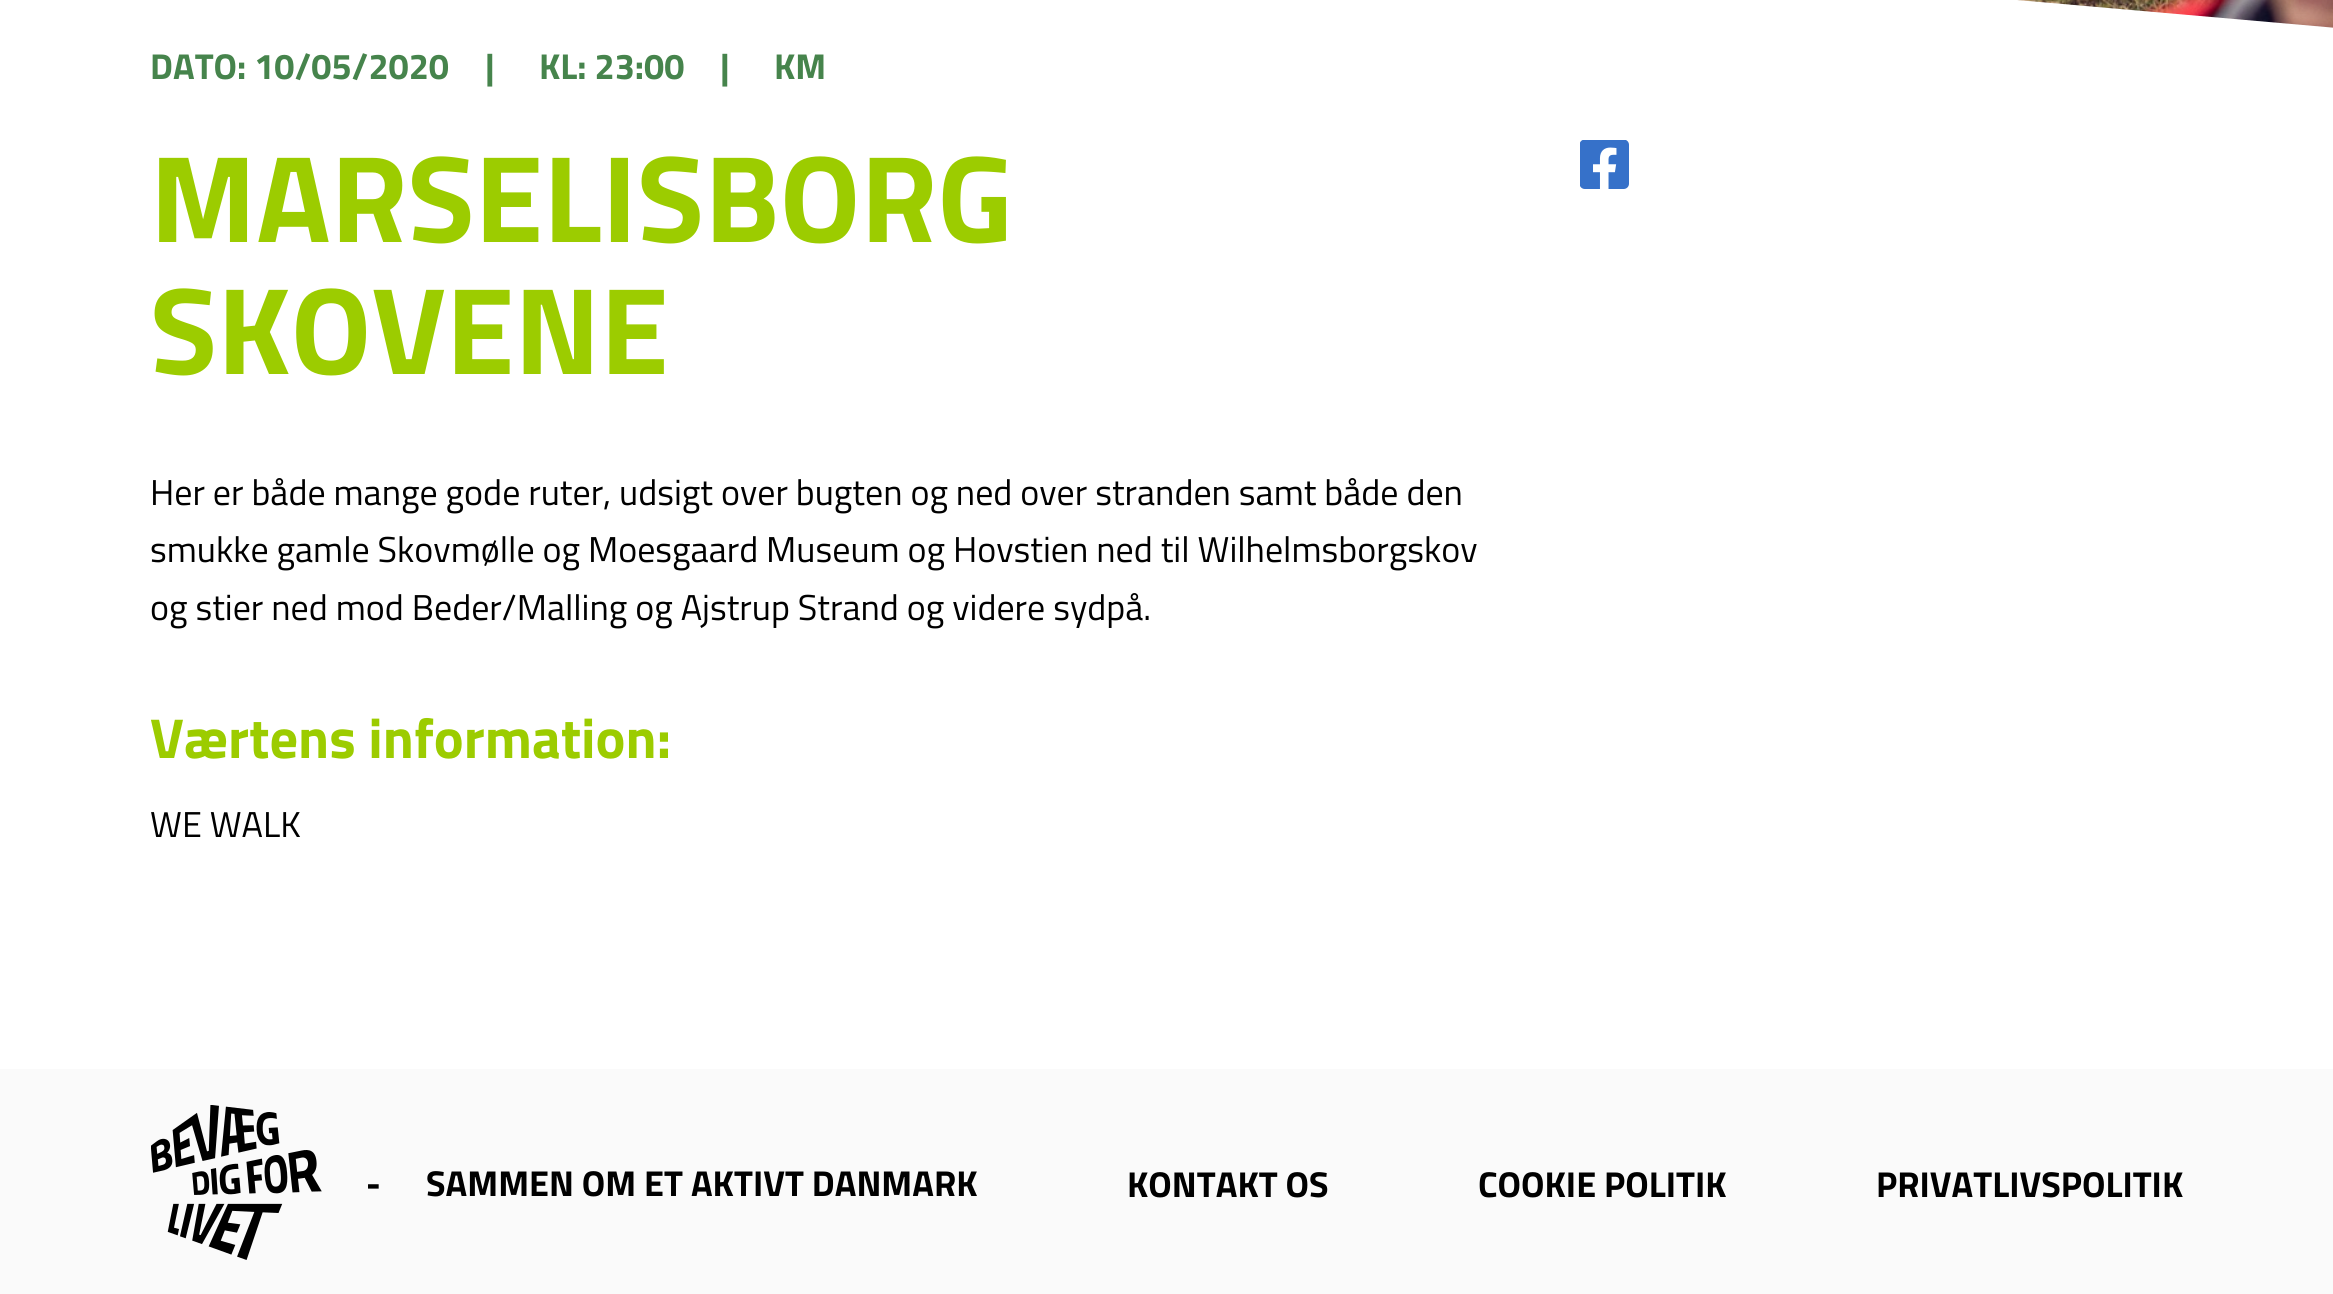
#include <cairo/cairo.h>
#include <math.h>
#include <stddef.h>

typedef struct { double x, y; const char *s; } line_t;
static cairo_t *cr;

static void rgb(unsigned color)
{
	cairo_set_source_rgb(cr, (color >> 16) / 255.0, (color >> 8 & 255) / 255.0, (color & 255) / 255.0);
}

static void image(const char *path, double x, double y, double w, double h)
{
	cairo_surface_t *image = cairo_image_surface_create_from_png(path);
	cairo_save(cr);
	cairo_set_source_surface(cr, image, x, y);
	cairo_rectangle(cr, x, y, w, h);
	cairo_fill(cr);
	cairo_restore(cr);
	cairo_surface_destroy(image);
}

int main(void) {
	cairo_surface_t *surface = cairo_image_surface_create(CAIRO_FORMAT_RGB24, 2333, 1294);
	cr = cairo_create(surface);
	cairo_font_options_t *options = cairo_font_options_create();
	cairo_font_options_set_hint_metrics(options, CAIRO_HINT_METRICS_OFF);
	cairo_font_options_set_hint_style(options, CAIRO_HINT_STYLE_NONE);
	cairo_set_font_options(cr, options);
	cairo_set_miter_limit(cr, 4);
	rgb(0xffffff);
	cairo_paint(cr);
	image("img/1.png", 2017, 0, 316, 28);
	cairo_save(cr);
	cairo_rectangle(cr, 0, 0, 2333, 151);
	cairo_clip(cr);
	rgb(0xffffff);
	cairo_new_path(cr);
	cairo_move_to(cr, -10, -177);
	cairo_line_to(cr, 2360, 30);
	cairo_line_to(cr, 2320, 479);
	cairo_line_to(cr, -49, 271);
	cairo_close_path(cr);
	cairo_fill(cr);
	cairo_restore(cr);
	image("img/2.png", 1580, 140, 49, 49);
	rgb(0xfafafa);
	cairo_rectangle(cr, 0, 1069, 2333, 225);
	cairo_fill(cr);
	image("img/3.png", 151, 1105, 171, 155);
	cairo_select_font_face(cr, "Titillium Web", CAIRO_FONT_SLANT_NORMAL, CAIRO_FONT_WEIGHT_BOLD);
	cairo_set_font_size(cr, 36);
	rgb(0x46844c);
	{
		static const line_t items[] = {
			{150, 79, "DATO: 10/05/2020"},
			{485, 79, "|"},
			{539, 79, "KL: 23:00"},
			{720, 79, "|"},
			{774, 79, "KM"},
		};
		for (size_t i = 0; i < sizeof items / sizeof *items; i++) {
			cairo_move_to(cr, items[i].x, items[i].y);
			cairo_show_text(cr, items[i].s);
		}
	}
	cairo_set_font_size(cr, 123.75);
	rgb(0x9ccc00);
	cairo_move_to(cr, 150, 242);
	cairo_show_text(cr, "MARSELISBORG");
	cairo_move_to(cr, 150, 374);
	cairo_show_text(cr, "SKOVENE");
	cairo_select_font_face(cr, "Titillium Web", CAIRO_FONT_SLANT_NORMAL, CAIRO_FONT_WEIGHT_NORMAL);
	cairo_set_font_size(cr, 36);
	rgb(0x000000);
	{
		static const line_t items[] = {
			{150, 505, "Her er både mange gode ruter, udsigt over bugten og ned over stranden samt både den"},
			{150, 562, "smukke gamle Skovmølle og Moesgaard Museum og Hovstien ned til Wilhelmsborgskov"},
			{150, 620, "og stier ned mod Beder/Malling og Ajstrup Strand og videre sydpå."},
		};
		for (size_t i = 0; i < sizeof items / sizeof *items; i++) {
			cairo_move_to(cr, items[i].x, items[i].y);
			cairo_show_text(cr, items[i].s);
		}
	}
	cairo_select_font_face(cr, "Titillium Web", CAIRO_FONT_SLANT_NORMAL, CAIRO_FONT_WEIGHT_BOLD);
	cairo_set_font_size(cr, 56.25);
	rgb(0x9ccc00);
	cairo_move_to(cr, 150, 758);
	cairo_show_text(cr, "Værtens information:");
	cairo_select_font_face(cr, "Titillium Web", CAIRO_FONT_SLANT_NORMAL, CAIRO_FONT_WEIGHT_NORMAL);
	cairo_set_font_size(cr, 36);
	rgb(0x000000);
	cairo_move_to(cr, 150, 837);
	cairo_show_text(cr, "WE WALK");
	cairo_select_font_face(cr, "Titillium Web", CAIRO_FONT_SLANT_NORMAL, CAIRO_FONT_WEIGHT_BOLD);
	{
		static const line_t items[] = {
			{366, 1196, "-"},
			{426, 1196, "SAMMEN OM ET AKTIVT DANMARK"},
			{1127, 1197, "KONTAKT OS"},
			{1478, 1197, "COOKIE POLITIK"},
			{1876, 1197, "PRIVATLIVSPOLITIK"},
		};
		for (size_t i = 0; i < sizeof items / sizeof *items; i++) {
			cairo_move_to(cr, items[i].x, items[i].y);
			cairo_show_text(cr, items[i].s);
		}
	}
	cairo_surface_write_to_png(surface, "page.png");
	cairo_font_options_destroy(options);
	cairo_destroy(cr);
	cairo_surface_destroy(surface);
	return 0;
}
